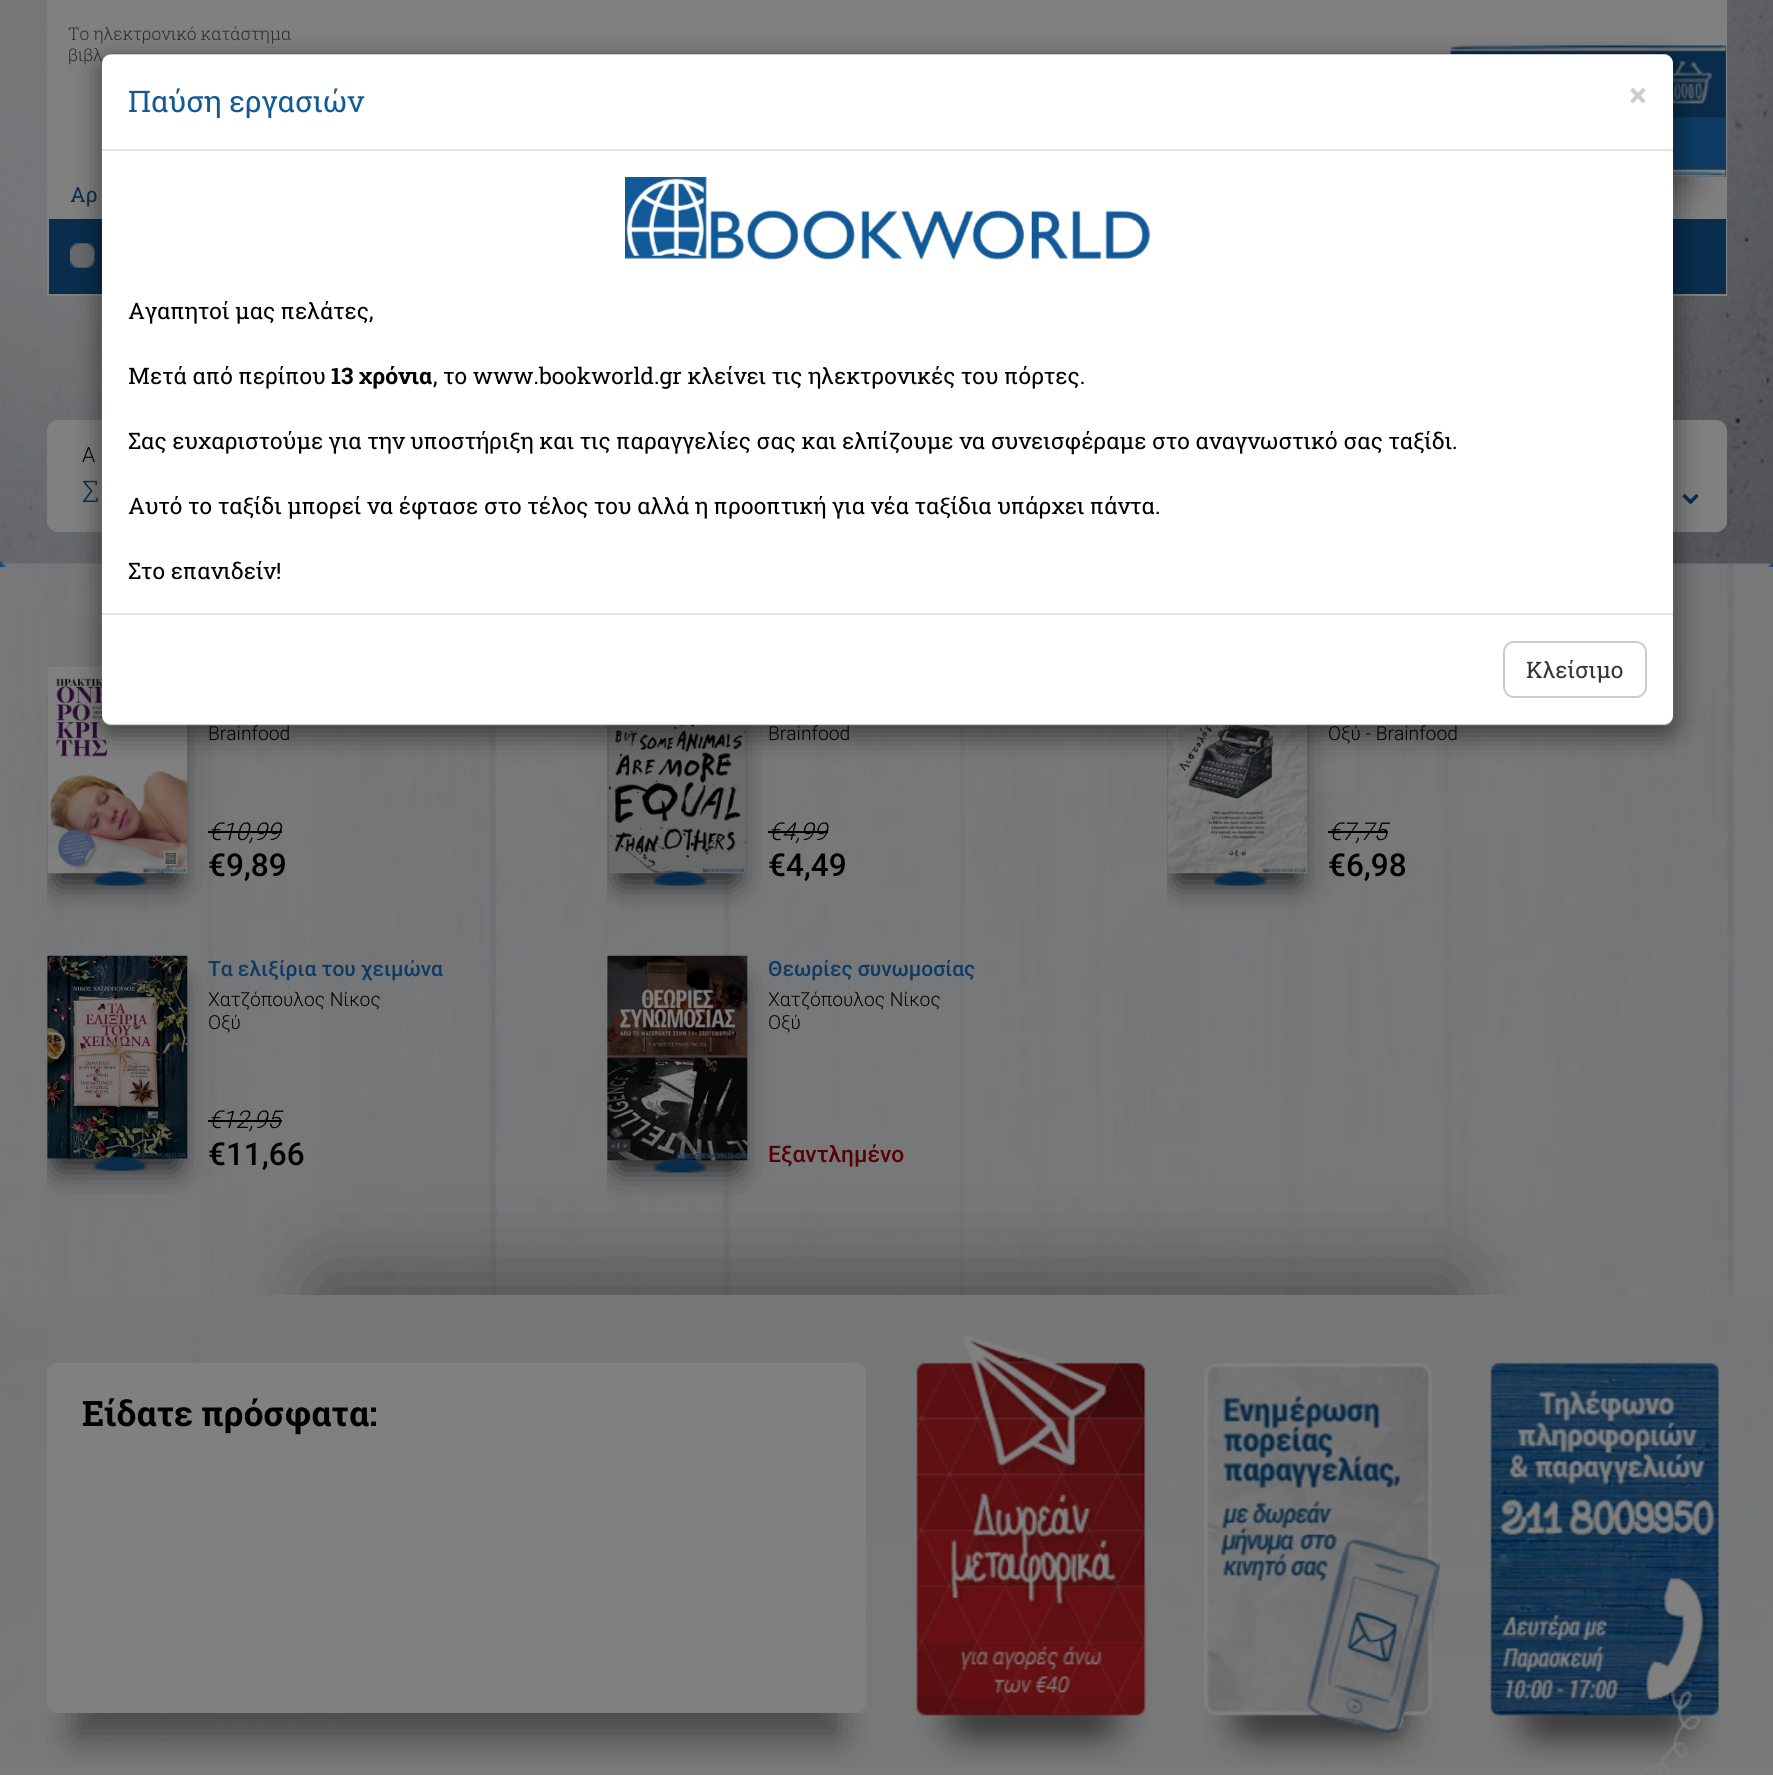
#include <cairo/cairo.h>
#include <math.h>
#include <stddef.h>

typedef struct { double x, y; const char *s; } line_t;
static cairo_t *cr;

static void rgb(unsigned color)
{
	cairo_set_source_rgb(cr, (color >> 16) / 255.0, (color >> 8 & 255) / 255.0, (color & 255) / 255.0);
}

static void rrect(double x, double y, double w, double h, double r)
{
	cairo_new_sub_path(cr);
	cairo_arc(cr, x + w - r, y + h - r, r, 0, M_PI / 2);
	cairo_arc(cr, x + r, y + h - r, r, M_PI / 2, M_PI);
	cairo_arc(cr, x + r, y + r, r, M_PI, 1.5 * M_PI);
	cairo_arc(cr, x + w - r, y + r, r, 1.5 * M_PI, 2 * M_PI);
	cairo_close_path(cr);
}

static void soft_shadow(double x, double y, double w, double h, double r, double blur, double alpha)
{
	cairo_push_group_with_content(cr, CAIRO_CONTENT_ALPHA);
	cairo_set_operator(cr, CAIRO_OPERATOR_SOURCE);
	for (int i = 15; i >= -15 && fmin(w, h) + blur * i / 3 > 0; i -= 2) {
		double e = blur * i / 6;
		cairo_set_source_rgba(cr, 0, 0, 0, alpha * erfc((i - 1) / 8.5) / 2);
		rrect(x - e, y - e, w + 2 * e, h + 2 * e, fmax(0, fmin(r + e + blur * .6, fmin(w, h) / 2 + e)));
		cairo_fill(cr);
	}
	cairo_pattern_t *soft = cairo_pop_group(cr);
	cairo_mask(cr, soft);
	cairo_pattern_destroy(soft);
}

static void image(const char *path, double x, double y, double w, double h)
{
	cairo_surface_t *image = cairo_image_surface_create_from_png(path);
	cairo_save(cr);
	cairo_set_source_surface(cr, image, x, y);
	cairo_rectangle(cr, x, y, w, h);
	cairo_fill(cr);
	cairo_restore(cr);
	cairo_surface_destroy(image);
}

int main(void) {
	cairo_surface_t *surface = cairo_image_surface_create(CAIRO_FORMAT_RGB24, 1773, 1775);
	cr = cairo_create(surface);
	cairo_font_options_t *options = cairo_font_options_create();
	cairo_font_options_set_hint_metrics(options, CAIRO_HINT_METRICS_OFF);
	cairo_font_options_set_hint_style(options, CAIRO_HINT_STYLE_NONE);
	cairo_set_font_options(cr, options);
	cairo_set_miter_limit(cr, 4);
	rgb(0x7b7b7b);
	cairo_paint(cr);
	image("img/1.png", 0, 1295, 1773, 473);
	image("img/2.png", 0, 563, 1773, 732);
	image("img/3.png", 0, 0, 1773, 567);
	rgb(0x808080);
	cairo_rectangle(cr, 47, 0, 1680, 296);
	cairo_fill(cr);
	rgb(0x092d4c);
	cairo_rectangle(cr, 49, 219, 1677, 75);
	cairo_fill(cr);
	rgb(0x000000);
	soft_shadow(1484, 123, 208, 64, 0, 17.5, 0.32);
	rgb(0x0e3b63);
	cairo_rectangle(cr, 1673, 46, 53, 131);
	cairo_fill(cr);
	image("img/4.png", 1450, 45, 276, 73);
	image("img/5.png", 1673, 169, 53, 8);
	image("img/6.png", 70, 243, 25, 25);
	rgb(0x808080);
	rrect(47, 420, 1680, 112, 11);
	cairo_fill(cr);
	cairo_new_path(cr);
	cairo_move_to(cr, 1683.5, 495);
	cairo_line_to(cr, 1690.5, 502);
	cairo_line_to(cr, 1697.5, 495);
	rgb(0x092d4c);
	cairo_set_line_width(cr, 3.5);
	cairo_stroke(cr);
	cairo_save(cr);
	cairo_rectangle(cr, 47, 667, 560, 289);
	cairo_clip(cr);
	rgb(0x1e1e1e);
	soft_shadow(58, 697, 119, 185, 0, 15, 1);
	cairo_restore(cr);
	image("img/7.png", 47, 667, 141, 207);
	image("img/8.png", 93, 871, 54, 15);
	rgb(0x000000);
	cairo_rectangle(cr, 208, 831, 74, 2);
	cairo_fill(cr);
	cairo_save(cr);
	cairo_rectangle(cr, 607, 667, 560, 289);
	cairo_clip(cr);
	rgb(0x1e1e1e);
	soft_shadow(620, 697, 115, 185, 0, 15, 1);
	cairo_restore(cr);
	image("img/9.png", 609, 725, 137, 149);
	image("img/10.png", 653, 871, 54, 15);
	cairo_rectangle(cr, 768, 831, 60, 2);
	cairo_fill(cr);
	cairo_save(cr);
	cairo_rectangle(cr, 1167, 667, 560, 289);
	cairo_clip(cr);
	rgb(0x1e1e1e);
	soft_shadow(1178, 697, 119, 185, 0, 15, 1);
	cairo_restore(cr);
	image("img/11.png", 1167, 725, 141, 149);
	image("img/12.png", 1213, 871, 54, 15);
	cairo_rectangle(cr, 1328, 831, 60, 2);
	cairo_fill(cr);
	cairo_save(cr);
	cairo_rectangle(cr, 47, 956, 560, 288);
	cairo_clip(cr);
	rgb(0x1e1e1e);
	soft_shadow(58, 985, 119, 182, 0, 15, 1);
	cairo_restore(cr);
	cairo_save(cr);
	cairo_rectangle(cr, 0, 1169, 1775, 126);
	cairo_clip(cr);
	rgb(0x000000);
	soft_shadow(320, 1279, 1134, 70, 0, 44, 0.35);
	cairo_restore(cr);
	image("img/13.png", 47, 955, 141, 204);
	image("img/14.png", 93, 1156, 54, 15);
	cairo_rectangle(cr, 208, 1120, 74, 2);
	cairo_fill(cr);
	cairo_save(cr);
	cairo_rectangle(cr, 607, 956, 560, 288);
	cairo_clip(cr);
	rgb(0x1e1e1e);
	soft_shadow(618, 985, 119, 184, 0, 15, 1);
	cairo_restore(cr);
	image("img/15.png", 607, 955, 141, 206);
	image("img/16.png", 653, 1158, 54, 15);
	cairo_save(cr);
	cairo_set_fill_rule(cr, CAIRO_FILL_RULE_EVEN_ODD);
	cairo_new_path(cr);
	cairo_move_to(cr, 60, 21);
	cairo_line_to(cr, 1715, 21);
	cairo_line_to(cr, 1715, 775);
	cairo_line_to(cr, 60, 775);
	cairo_close_path(cr);
	cairo_move_to(cr, 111, 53);
	cairo_line_to(cr, 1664, 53);
	cairo_curve_to(cr, 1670, 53, 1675, 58, 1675, 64);
	cairo_line_to(cr, 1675, 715);
	cairo_curve_to(cr, 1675, 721, 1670, 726, 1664, 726);
	cairo_line_to(cr, 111, 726);
	cairo_curve_to(cr, 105, 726, 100, 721, 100, 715);
	cairo_line_to(cr, 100, 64);
	cairo_curve_to(cr, 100, 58, 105, 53, 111, 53);
	cairo_close_path(cr);
	cairo_clip(cr);
	rgb(0x000000);
	soft_shadow(100, 61, 1575, 674, 11, 13, 0.5);
	cairo_restore(cr);
	cairo_save(cr);
	cairo_rectangle(cr, 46, 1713, 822, 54);
	cairo_clip(cr);
	rgb(0x1e1e1e);
	soft_shadow(74, 1482, 766, 256, 0, 16.5, 0.5);
	cairo_restore(cr);
	rgb(0x808080);
	rrect(47, 1363, 819, 350, 11);
	cairo_fill(cr);
	image("img/18.png", 915, 1335, 232, 429);
	image("img/19.png", 1204, 1363, 237, 403);
	image("img/20.png", 1490, 1362, 229, 413);
	cairo_select_font_face(cr, "Roboto Slab Light", CAIRO_FONT_SLANT_NORMAL, CAIRO_FONT_WEIGHT_NORMAL);
	cairo_set_font_size(cr, 17.5);
	rgb(0x282b2f);
	cairo_move_to(cr, 68, 40);
	cairo_show_text(cr, "Το ηλεκτρονικό κατάστημα");
	cairo_move_to(cr, 68, 61);
	cairo_show_text(cr, "βιβλ");
	cairo_select_font_face(cr, "Roboto Slab", CAIRO_FONT_SLANT_NORMAL, CAIRO_FONT_WEIGHT_NORMAL);
	cairo_set_font_size(cr, 21);
	rgb(0x0b2a45);
	cairo_move_to(cr, 70, 202);
	cairo_show_text(cr, "Αρ");
	cairo_select_font_face(cr, "Roboto Light", CAIRO_FONT_SLANT_NORMAL, CAIRO_FONT_WEIGHT_NORMAL);
	rgb(0x000000);
	cairo_move_to(cr, 82, 462);
	cairo_show_text(cr, "Α");
	cairo_select_font_face(cr, "Roboto Slab Light", CAIRO_FONT_SLANT_NORMAL, CAIRO_FONT_WEIGHT_NORMAL);
	cairo_set_font_size(cr, 29.75);
	rgb(0x092d4c);
	cairo_move_to(cr, 82, 502);
	cairo_show_text(cr, "Σ");
	cairo_select_font_face(cr, "Roboto Light", CAIRO_FONT_SLANT_NORMAL, CAIRO_FONT_WEIGHT_NORMAL);
	cairo_set_font_size(cr, 19.25);
	rgb(0x000000);
	cairo_move_to(cr, 208, 740);
	cairo_show_text(cr, "Brainfood");
	cairo_select_font_face(cr, "Roboto Light", CAIRO_FONT_SLANT_ITALIC, CAIRO_FONT_WEIGHT_NORMAL);
	cairo_set_font_size(cr, 24.5);
	cairo_move_to(cr, 208, 840);
	cairo_show_text(cr, "€10,99");
	cairo_select_font_face(cr, "Roboto Medium", CAIRO_FONT_SLANT_NORMAL, CAIRO_FONT_WEIGHT_NORMAL);
	cairo_set_font_size(cr, 31.5);
	cairo_move_to(cr, 208, 876);
	cairo_show_text(cr, "€9,89");
	cairo_select_font_face(cr, "Roboto Light", CAIRO_FONT_SLANT_NORMAL, CAIRO_FONT_WEIGHT_NORMAL);
	cairo_set_font_size(cr, 19.25);
	cairo_move_to(cr, 768, 740);
	cairo_show_text(cr, "Brainfood");
	cairo_select_font_face(cr, "Roboto Light", CAIRO_FONT_SLANT_ITALIC, CAIRO_FONT_WEIGHT_NORMAL);
	cairo_set_font_size(cr, 24.5);
	cairo_move_to(cr, 768, 840);
	cairo_show_text(cr, "€4,99");
	cairo_select_font_face(cr, "Roboto Medium", CAIRO_FONT_SLANT_NORMAL, CAIRO_FONT_WEIGHT_NORMAL);
	cairo_set_font_size(cr, 31.5);
	cairo_move_to(cr, 768, 876);
	cairo_show_text(cr, "€4,49");
	cairo_select_font_face(cr, "Roboto Light", CAIRO_FONT_SLANT_NORMAL, CAIRO_FONT_WEIGHT_NORMAL);
	cairo_set_font_size(cr, 19.25);
	cairo_move_to(cr, 1328, 740);
	cairo_show_text(cr, "Οξύ - Brainfood");
	cairo_select_font_face(cr, "Roboto Light", CAIRO_FONT_SLANT_ITALIC, CAIRO_FONT_WEIGHT_NORMAL);
	cairo_set_font_size(cr, 24.5);
	cairo_move_to(cr, 1328, 840);
	cairo_show_text(cr, "€7,75");
	cairo_select_font_face(cr, "Roboto Medium", CAIRO_FONT_SLANT_NORMAL, CAIRO_FONT_WEIGHT_NORMAL);
	cairo_set_font_size(cr, 31.5);
	cairo_move_to(cr, 1328, 876);
	cairo_show_text(cr, "€6,98");
	cairo_set_font_size(cr, 21);
	rgb(0x0e3b63);
	cairo_move_to(cr, 208, 976);
	cairo_show_text(cr, "Τα ελιξίρια του χειμώνα");
	cairo_select_font_face(cr, "Roboto Light", CAIRO_FONT_SLANT_NORMAL, CAIRO_FONT_WEIGHT_NORMAL);
	cairo_set_font_size(cr, 19.25);
	rgb(0x000000);
	cairo_move_to(cr, 208, 1006);
	cairo_show_text(cr, "Χατζόπουλος Νίκος");
	cairo_move_to(cr, 208, 1029);
	cairo_show_text(cr, "Οξύ");
	cairo_select_font_face(cr, "Roboto Light", CAIRO_FONT_SLANT_ITALIC, CAIRO_FONT_WEIGHT_NORMAL);
	cairo_set_font_size(cr, 24.5);
	cairo_move_to(cr, 208, 1128);
	cairo_show_text(cr, "€12,95");
	cairo_select_font_face(cr, "Roboto Medium", CAIRO_FONT_SLANT_NORMAL, CAIRO_FONT_WEIGHT_NORMAL);
	cairo_set_font_size(cr, 31.5);
	cairo_move_to(cr, 208, 1165);
	cairo_show_text(cr, "€11,66");
	cairo_set_font_size(cr, 21);
	rgb(0x0e3b63);
	cairo_move_to(cr, 768, 976);
	cairo_show_text(cr, "Θεωρίες συνωμοσίας");
	cairo_select_font_face(cr, "Roboto Light", CAIRO_FONT_SLANT_NORMAL, CAIRO_FONT_WEIGHT_NORMAL);
	cairo_set_font_size(cr, 19.25);
	rgb(0x000000);
	cairo_move_to(cr, 768, 1006);
	cairo_show_text(cr, "Χατζόπουλος Νίκος");
	cairo_move_to(cr, 768, 1029);
	cairo_show_text(cr, "Οξύ");
	cairo_select_font_face(cr, "Roboto Medium", CAIRO_FONT_SLANT_NORMAL, CAIRO_FONT_WEIGHT_NORMAL);
	cairo_set_font_size(cr, 22.75);
	rgb(0x5b0000);
	cairo_move_to(cr, 768, 1162);
	cairo_show_text(cr, "Εξαντλημένο");
	rgb(0xffffff);
	rrect(102, 54, 1571, 671, 9);
	cairo_fill(cr);
	rrect(101, 54, 1573, 671, 10);
	cairo_set_source_rgba(cr, 0, 0, 0, 0.2);
	cairo_set_line_width(cr, 2);
	cairo_stroke(cr);
	rgb(0xe5e5e5);
	cairo_rectangle(cr, 102, 149, 1571, 2);
	cairo_fill(cr);
	cairo_select_font_face(cr, "Roboto Slab", CAIRO_FONT_SLANT_NORMAL, CAIRO_FONT_WEIGHT_NORMAL);
	cairo_set_font_size(cr, 29.75);
	rgb(0x125997);
	cairo_move_to(cr, 128, 112);
	cairo_show_text(cr, "Παύση εργασιών");
	cairo_select_font_face(cr, "Roboto Slab", CAIRO_FONT_SLANT_NORMAL, CAIRO_FONT_WEIGHT_BOLD);
	cairo_set_font_size(cr, 34);
	rgb(0xcccccc);
	cairo_move_to(cr, 1629, 107);
	cairo_show_text(cr, "×");
	image("img/17.png", 625, 177, 525, 83);
	cairo_select_font_face(cr, "Roboto Slab", CAIRO_FONT_SLANT_NORMAL, CAIRO_FONT_WEIGHT_NORMAL);
	cairo_set_font_size(cr, 22.75);
	rgb(0x000000);
	cairo_move_to(cr, 128, 319);
	cairo_show_text(cr, "Αγαπητοί μας πελάτες,");
	cairo_move_to(cr, 128, 384);
	cairo_show_text(cr, "Μετά από περίπου");
	cairo_select_font_face(cr, "Roboto Slab", CAIRO_FONT_SLANT_NORMAL, CAIRO_FONT_WEIGHT_BOLD);
	cairo_move_to(cr, 331, 384);
	cairo_show_text(cr, "13 χρόνια");
	cairo_select_font_face(cr, "Roboto Slab", CAIRO_FONT_SLANT_NORMAL, CAIRO_FONT_WEIGHT_NORMAL);
	{
		static const line_t items[] = {
			{433, 384, ", το www.bookworld.gr κλείνει τις ηλεκτρονικές του πόρτες."},
			{128, 449, "Σας ευχαριστούμε για την υποστήριξη και τις παραγγελίες σας και ελπίζουμε να συνεισφέραμε στο αναγνωστικό σας ταξίδι."},
			{128, 514, "Αυτό το ταξίδι μπορεί να έφτασε στο τέλος του αλλά η προοπτική για νέα ταξίδια υπάρχει πάντα."},
			{128, 579, "Στο επανιδείν!"},
		};
		for (size_t i = 0; i < sizeof items / sizeof *items; i++) {
			cairo_move_to(cr, items[i].x, items[i].y);
			cairo_show_text(cr, items[i].s);
		}
	}
	rgb(0xe5e5e5);
	cairo_rectangle(cr, 102, 613, 1571, 2);
	cairo_fill(cr);
	rrect(1504, 642, 142, 55, 10);
	rgb(0xcccccc);
	cairo_stroke(cr);
	rgb(0x333333);
	cairo_move_to(cr, 1526, 678);
	cairo_show_text(cr, "Κλείσιμο");
	cairo_select_font_face(cr, "Roboto Slab", CAIRO_FONT_SLANT_NORMAL, CAIRO_FONT_WEIGHT_BOLD);
	cairo_set_font_size(cr, 35);
	rgb(0x000000);
	cairo_move_to(cr, 82, 1426);
	cairo_show_text(cr, "Είδατε πρόσφατα:");
	cairo_surface_write_to_png(surface, "page.png");
	cairo_font_options_destroy(options);
	cairo_destroy(cr);
	cairo_surface_destroy(surface);
	return 0;
}
